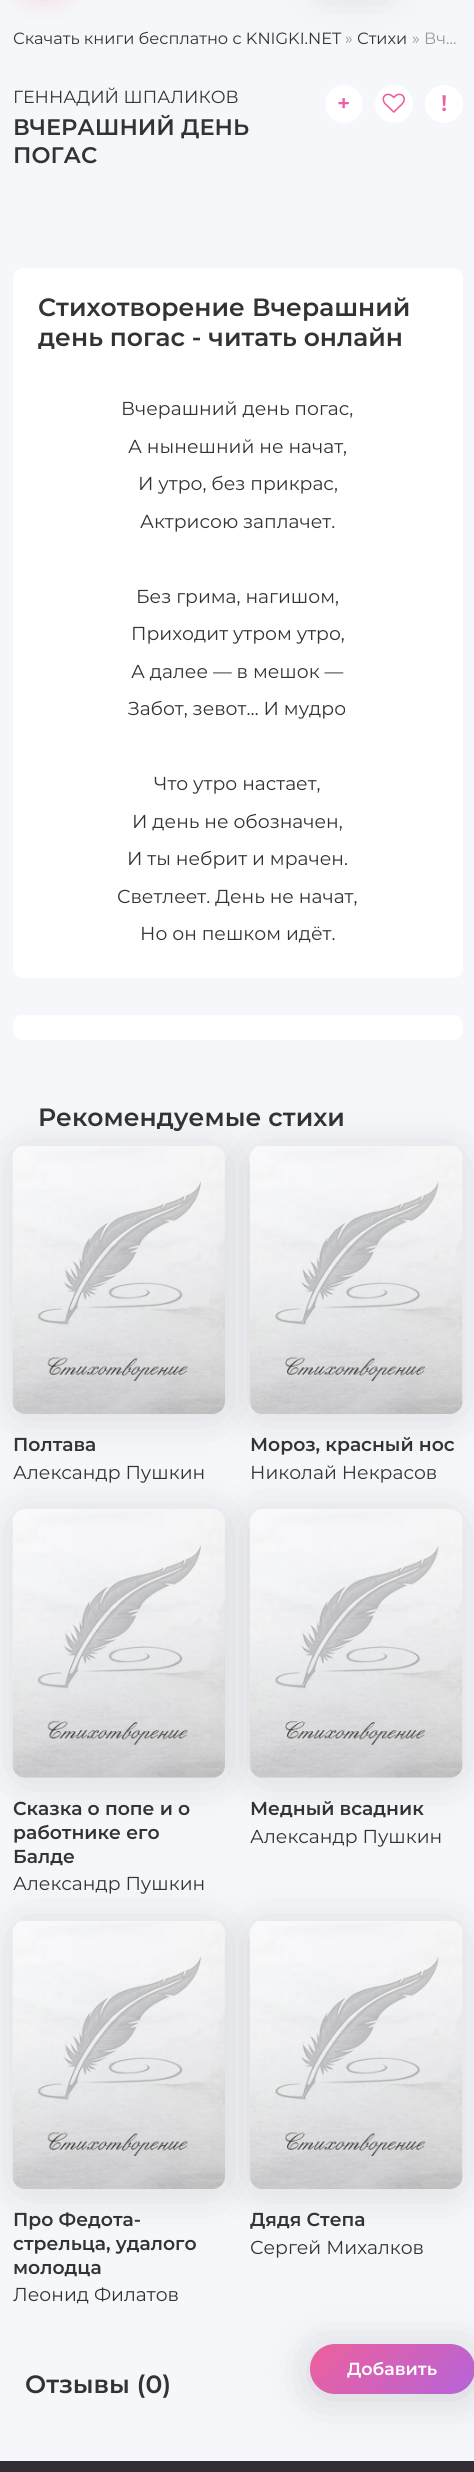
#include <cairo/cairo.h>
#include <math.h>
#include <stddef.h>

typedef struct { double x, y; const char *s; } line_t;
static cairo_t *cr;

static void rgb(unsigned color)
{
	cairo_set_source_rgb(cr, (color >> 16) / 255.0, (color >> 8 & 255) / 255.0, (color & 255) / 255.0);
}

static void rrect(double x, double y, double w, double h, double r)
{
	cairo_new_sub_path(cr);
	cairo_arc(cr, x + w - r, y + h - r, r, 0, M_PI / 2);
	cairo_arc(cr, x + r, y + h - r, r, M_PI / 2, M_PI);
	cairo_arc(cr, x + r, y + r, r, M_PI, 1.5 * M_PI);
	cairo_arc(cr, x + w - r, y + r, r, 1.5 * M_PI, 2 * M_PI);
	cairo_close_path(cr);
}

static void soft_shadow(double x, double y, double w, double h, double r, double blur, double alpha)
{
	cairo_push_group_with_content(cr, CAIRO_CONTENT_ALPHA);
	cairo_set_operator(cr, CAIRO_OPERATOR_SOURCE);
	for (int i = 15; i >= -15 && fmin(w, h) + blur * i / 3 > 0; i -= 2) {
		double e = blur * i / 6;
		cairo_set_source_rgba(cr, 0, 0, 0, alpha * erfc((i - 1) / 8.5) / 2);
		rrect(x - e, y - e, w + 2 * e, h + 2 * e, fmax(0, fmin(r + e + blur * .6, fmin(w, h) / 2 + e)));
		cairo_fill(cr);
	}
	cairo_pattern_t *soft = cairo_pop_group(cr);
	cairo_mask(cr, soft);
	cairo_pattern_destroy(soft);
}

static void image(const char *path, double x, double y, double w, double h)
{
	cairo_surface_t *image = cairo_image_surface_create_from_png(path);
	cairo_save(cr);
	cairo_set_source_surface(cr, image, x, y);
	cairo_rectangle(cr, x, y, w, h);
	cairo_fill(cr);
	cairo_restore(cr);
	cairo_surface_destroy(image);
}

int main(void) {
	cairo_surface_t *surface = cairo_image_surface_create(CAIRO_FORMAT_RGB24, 474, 2472);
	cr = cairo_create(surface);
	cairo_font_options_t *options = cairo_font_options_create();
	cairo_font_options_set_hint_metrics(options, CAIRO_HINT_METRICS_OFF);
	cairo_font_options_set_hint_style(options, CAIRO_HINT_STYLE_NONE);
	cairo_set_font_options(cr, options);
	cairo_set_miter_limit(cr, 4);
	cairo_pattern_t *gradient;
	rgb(0xf5f7fb);
	cairo_paint(cr);
	rgb(0xf42a2a);
	soft_shadow(13, -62, 62, 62, 31, 12.5, 0.15);
	rgb(0x333333);
	soft_shadow(323, -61, 65, 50, 5, 22, 0.2);
	rgb(0xffffff);
	cairo_arc(cr, 344, 104, 19, 0, 2 * M_PI);
	cairo_fill(cr);
	cairo_arc(cr, 394, 104, 19, 0, 2 * M_PI);
	cairo_fill(cr);
	image("img/1.png", 382, 93, 23, 20);
	cairo_arc(cr, 444, 104, 19, 0, 2 * M_PI);
	cairo_fill(cr);
	rrect(13, 268, 450, 710, 10);
	cairo_fill(cr);
	rrect(13, 1015, 450, 25, 10);
	cairo_fill(cr);
	rgb(0x333333);
	soft_shadow(13, 1149, 212, 269, 13, 22, 0.15);
	image("img/2.png", 12, 1146, 213, 268);
	soft_shadow(250, 1149, 213, 269, 13, 22, 0.15);
	image("img/3.png", 250, 1146, 213, 268);
	soft_shadow(13, 1513, 212, 268, 13, 22, 0.15);
	image("img/4.png", 12, 1509, 213, 269);
	soft_shadow(250, 1513, 213, 268, 13, 22, 0.15);
	image("img/5.png", 250, 1509, 213, 269);
	soft_shadow(13, 1924, 212, 269, 13, 22, 0.15);
	image("img/2.png", 12, 1921, 213, 268);
	soft_shadow(250, 1924, 213, 269, 13, 22, 0.15);
	image("img/3.png", 250, 1921, 213, 268);
	rgb(0x332e35);
	cairo_rectangle(cr, 0, 2461, 474, 11);
	cairo_fill(cr);
	rgb(0x333333);
	soft_shadow(310, 2348, 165, 50, 25, 22, 0.2);
	gradient = cairo_pattern_create_linear(339, 2315, 446, 2423);
	cairo_pattern_add_color_stop_rgba(gradient, 0, 0.933, 0.376, 0.612, 1);
	cairo_pattern_add_color_stop_rgba(gradient, 1, 0.71, 0.392, 0.851, 1);
	cairo_set_source(cr, gradient);
	cairo_pattern_destroy(gradient);
	rrect(310, 2344, 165, 50, 25);
	cairo_fill(cr);
	cairo_select_font_face(cr, "Montserrat", CAIRO_FONT_SLANT_NORMAL, CAIRO_FONT_WEIGHT_NORMAL);
	cairo_set_font_size(cr, 16.25);
	rgb(0x333333);
	cairo_move_to(cr, 13, 44);
	cairo_show_text(cr, "Скачать книги бесплатно c KNIGKI.NET");
	rgb(0x999999);
	cairo_move_to(cr, 345, 44);
	cairo_show_text(cr, "»");
	rgb(0x333333);
	cairo_move_to(cr, 357, 44);
	cairo_show_text(cr, "Стихи");
	rgb(0x999999);
	cairo_move_to(cr, 412, 44);
	cairo_show_text(cr, "» Вч…");
	cairo_set_font_size(cr, 17.5);
	rgb(0x333333);
	cairo_move_to(cr, 13, 103);
	cairo_show_text(cr, "ГЕННАДИЙ ШПАЛИКОВ");
	cairo_select_font_face(cr, "Montserrat SemiBold", CAIRO_FONT_SLANT_NORMAL, CAIRO_FONT_WEIGHT_NORMAL);
	cairo_set_font_size(cr, 22.5);
	cairo_move_to(cr, 13, 135);
	cairo_show_text(cr, "ВЧЕРАШНИЙ ДЕНЬ");
	cairo_move_to(cr, 13, 163);
	cairo_show_text(cr, "ПОГАС");
	rgb(0xea60a0);
	cairo_move_to(cr, 337, 111);
	cairo_show_text(cr, "+");
	cairo_move_to(cr, 441, 111);
	cairo_show_text(cr, "!");
	cairo_set_font_size(cr, 25);
	rgb(0x333333);
	cairo_move_to(cr, 38, 316);
	cairo_show_text(cr, "Стихотворение Вчерашний");
	cairo_move_to(cr, 38, 346);
	cairo_show_text(cr, "день погас - читать онлайн");
	cairo_select_font_face(cr, "Montserrat", CAIRO_FONT_SLANT_NORMAL, CAIRO_FONT_WEIGHT_NORMAL);
	cairo_set_font_size(cr, 18.75);
	{
		static const line_t items[] = {
			{121, 415, "Вчерашний день погас,"},
			{128, 453, "А нынешний не начат,"},
			{138, 490, "И утро, без прикрас,"},
			{140, 528, "Актрисою заплачет."},
			{136, 603, "Без грима, нагишом,"},
			{131, 640, "Приходит утром утро,"},
			{131, 678, "А далее — в мешок —"},
			{128, 715, "Забот, зевот… И мудро"},
			{154, 790, "Что утро настает,"},
			{132, 828, "И день не обозначен,"},
			{127, 865, "И ты небрит и мрачен."},
			{117, 903, "Светлеет. День не начат,"},
			{140, 940, "Но он пешком идёт."},
		};
		for (size_t i = 0; i < sizeof items / sizeof *items; i++) {
			cairo_move_to(cr, items[i].x, items[i].y);
			cairo_show_text(cr, items[i].s);
		}
	}
	cairo_select_font_face(cr, "Montserrat SemiBold", CAIRO_FONT_SLANT_NORMAL, CAIRO_FONT_WEIGHT_NORMAL);
	cairo_set_font_size(cr, 25);
	cairo_move_to(cr, 38, 1126);
	cairo_show_text(cr, "Рекомендуемые стихи");
	cairo_set_font_size(cr, 18.75);
	cairo_move_to(cr, 13, 1451);
	cairo_show_text(cr, "Полтава");
	cairo_select_font_face(cr, "Montserrat", CAIRO_FONT_SLANT_NORMAL, CAIRO_FONT_WEIGHT_NORMAL);
	cairo_move_to(cr, 13, 1479);
	cairo_show_text(cr, "Александр Пушкин");
	cairo_select_font_face(cr, "Montserrat SemiBold", CAIRO_FONT_SLANT_NORMAL, CAIRO_FONT_WEIGHT_NORMAL);
	cairo_move_to(cr, 250, 1451);
	cairo_show_text(cr, "Мороз, красный нос");
	cairo_select_font_face(cr, "Montserrat", CAIRO_FONT_SLANT_NORMAL, CAIRO_FONT_WEIGHT_NORMAL);
	cairo_move_to(cr, 250, 1479);
	cairo_show_text(cr, "Николай Некрасов");
	cairo_select_font_face(cr, "Montserrat SemiBold", CAIRO_FONT_SLANT_NORMAL, CAIRO_FONT_WEIGHT_NORMAL);
	{
		static const line_t items[] = {
			{13, 1815, "Сказка о попе и о"},
			{13, 1839, "работнике его"},
			{13, 1863, "Балде"},
		};
		for (size_t i = 0; i < sizeof items / sizeof *items; i++) {
			cairo_move_to(cr, items[i].x, items[i].y);
			cairo_show_text(cr, items[i].s);
		}
	}
	cairo_select_font_face(cr, "Montserrat", CAIRO_FONT_SLANT_NORMAL, CAIRO_FONT_WEIGHT_NORMAL);
	cairo_move_to(cr, 13, 1890);
	cairo_show_text(cr, "Александр Пушкин");
	cairo_select_font_face(cr, "Montserrat SemiBold", CAIRO_FONT_SLANT_NORMAL, CAIRO_FONT_WEIGHT_NORMAL);
	cairo_move_to(cr, 250, 1815);
	cairo_show_text(cr, "Медный всадник");
	cairo_select_font_face(cr, "Montserrat", CAIRO_FONT_SLANT_NORMAL, CAIRO_FONT_WEIGHT_NORMAL);
	cairo_move_to(cr, 250, 1843);
	cairo_show_text(cr, "Александр Пушкин");
	cairo_select_font_face(cr, "Montserrat SemiBold", CAIRO_FONT_SLANT_NORMAL, CAIRO_FONT_WEIGHT_NORMAL);
	{
		static const line_t items[] = {
			{13, 2226, "Про Федота-"},
			{13, 2250, "стрельца, удалого"},
			{13, 2274, "молодца"},
		};
		for (size_t i = 0; i < sizeof items / sizeof *items; i++) {
			cairo_move_to(cr, items[i].x, items[i].y);
			cairo_show_text(cr, items[i].s);
		}
	}
	cairo_select_font_face(cr, "Montserrat", CAIRO_FONT_SLANT_NORMAL, CAIRO_FONT_WEIGHT_NORMAL);
	cairo_move_to(cr, 13, 2301);
	cairo_show_text(cr, "Леонид Филатов");
	cairo_select_font_face(cr, "Montserrat SemiBold", CAIRO_FONT_SLANT_NORMAL, CAIRO_FONT_WEIGHT_NORMAL);
	cairo_move_to(cr, 250, 2226);
	cairo_show_text(cr, "Дядя Степа");
	cairo_select_font_face(cr, "Montserrat", CAIRO_FONT_SLANT_NORMAL, CAIRO_FONT_WEIGHT_NORMAL);
	cairo_move_to(cr, 250, 2254);
	cairo_show_text(cr, "Сергей Михалков");
	cairo_select_font_face(cr, "Montserrat SemiBold", CAIRO_FONT_SLANT_NORMAL, CAIRO_FONT_WEIGHT_NORMAL);
	cairo_set_font_size(cr, 17.5);
	rgb(0xffffff);
	cairo_move_to(cr, 347, 2375);
	cairo_show_text(cr, "Добавить");
	cairo_set_font_size(cr, 25);
	rgb(0x333333);
	cairo_move_to(cr, 25, 2393);
	cairo_show_text(cr, "Отзывы (0)");
	cairo_surface_write_to_png(surface, "page.png");
	cairo_font_options_destroy(options);
	cairo_destroy(cr);
	cairo_surface_destroy(surface);
	return 0;
}
